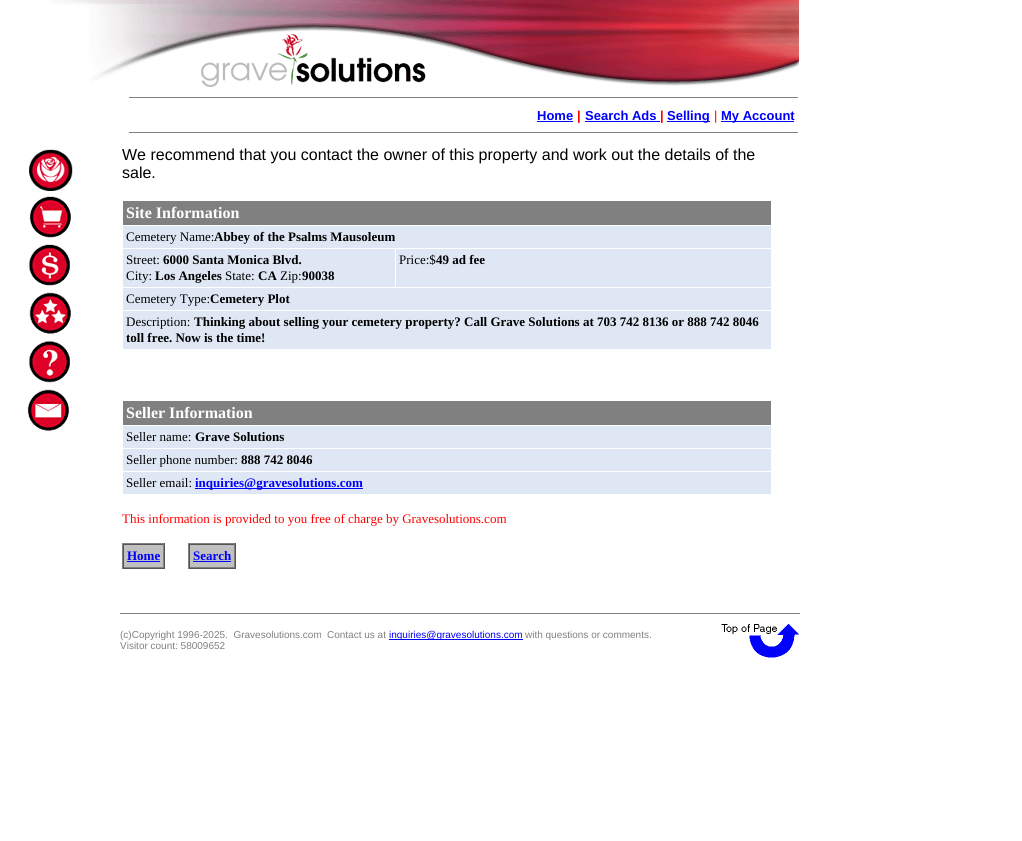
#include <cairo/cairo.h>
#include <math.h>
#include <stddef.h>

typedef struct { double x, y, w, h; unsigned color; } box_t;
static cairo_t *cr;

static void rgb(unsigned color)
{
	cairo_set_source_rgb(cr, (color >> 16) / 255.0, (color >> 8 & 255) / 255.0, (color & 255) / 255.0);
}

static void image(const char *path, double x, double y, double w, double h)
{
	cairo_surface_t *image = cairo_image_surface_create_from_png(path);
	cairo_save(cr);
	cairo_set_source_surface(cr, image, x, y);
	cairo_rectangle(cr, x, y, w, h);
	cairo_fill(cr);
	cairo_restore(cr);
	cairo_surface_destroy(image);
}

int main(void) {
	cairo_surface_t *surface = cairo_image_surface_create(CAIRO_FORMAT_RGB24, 1022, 841);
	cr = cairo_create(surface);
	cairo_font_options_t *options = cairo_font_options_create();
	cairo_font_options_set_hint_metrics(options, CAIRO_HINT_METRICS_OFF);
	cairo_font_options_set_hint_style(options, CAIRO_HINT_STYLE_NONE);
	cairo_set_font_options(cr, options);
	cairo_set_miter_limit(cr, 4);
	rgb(0xffffff);
	cairo_paint(cr);
	image("img/1.png", 49, 0, 750, 87);
	{
		static const box_t items[] = {
			{129, 97, 669, 1, 0x808080},
			{537, 121, 36, 1, 0x0000ff},
			{585, 121, 75, 1, 0x0000ff},
			{667, 121, 43, 1, 0x0000ff},
			{721, 121, 73, 1, 0x0000ff},
			{129, 132, 669, 1, 0x808080},
		};
		for (size_t i = 0; i < sizeof items / sizeof *items; i++) {
			rgb(items[i].color);
			cairo_rectangle(cr, items[i].x, items[i].y, items[i].w, items[i].h);
			cairo_fill(cr);
		}
	}
	image("img/2.png", 29, 149, 44, 42);
	image("img/3.png", 29, 196, 42, 42);
	image("img/4.png", 28, 244, 42, 42);
	image("img/5.png", 29, 292, 42, 42);
	image("img/6.png", 28, 340, 42, 43);
	image("img/7.png", 27, 389, 42, 42);
	{
		static const box_t items[] = {
			{123, 201, 648, 24, 0x808080},
			{123, 226, 648, 22, 0xdee7f3},
			{123, 249, 272, 38, 0xdee7f3},
			{396, 249, 375, 38, 0xdee7f3},
			{123, 288, 648, 22, 0xdee7f3},
			{123, 311, 648, 38, 0xdee7f3},
			{123, 401, 648, 24, 0x808080},
			{123, 426, 648, 22, 0xdee7f3},
			{123, 449, 648, 22, 0xdee7f3},
			{123, 472, 648, 22, 0xdee7f3},
			{195, 488, 168, 1, 0x0000ff},
			{124, 545, 39, 22, 0xc0c0c0},
			{122, 543, 43, 1, 0x808080},
			{164, 543, 1, 26, 0x555555},
			{122, 568, 43, 1, 0x555555},
			{122, 543, 1, 26, 0x808080},
			{123, 544, 41, 1, 0x555555},
			{163, 544, 1, 24, 0x808080},
			{123, 567, 41, 1, 0x808080},
			{123, 544, 1, 24, 0x555555},
			{127, 561, 33, 1, 0x0000ff},
			{190, 545, 44, 22, 0xc0c0c0},
			{188, 543, 48, 1, 0x808080},
			{235, 543, 1, 26, 0x555555},
			{188, 568, 48, 1, 0x555555},
			{188, 543, 1, 26, 0x808080},
			{189, 544, 46, 1, 0x555555},
			{234, 544, 1, 24, 0x808080},
			{189, 567, 46, 1, 0x808080},
			{189, 544, 1, 24, 0x555555},
			{193, 561, 38, 1, 0x0000ff},
			{120, 613, 680, 1, 0x808080},
			{389, 639, 134, 1, 0x0000ff},
		};
		for (size_t i = 0; i < sizeof items / sizeof *items; i++) {
			rgb(items[i].color);
			cairo_rectangle(cr, items[i].x, items[i].y, items[i].w, items[i].h);
			cairo_fill(cr);
		}
	}
	image("img/8.png", 721, 624, 78, 34);
	cairo_select_font_face(cr, "Liberation Sans", CAIRO_FONT_SLANT_NORMAL, CAIRO_FONT_WEIGHT_BOLD);
	cairo_set_font_size(cr, 13);
	cairo_move_to(cr, 537, 120);
	cairo_show_text(cr, "Home");
	rgb(0xff0000);
	cairo_move_to(cr, 577, 120);
	cairo_show_text(cr, "|");
	rgb(0x0000ff);
	cairo_move_to(cr, 585, 120);
	cairo_show_text(cr, "Search Ads");
	rgb(0xff0000);
	cairo_move_to(cr, 660, 120);
	cairo_show_text(cr, "|");
	rgb(0x0000ff);
	cairo_move_to(cr, 667, 120);
	cairo_show_text(cr, "Selling");
	cairo_select_font_face(cr, "Liberation Sans", CAIRO_FONT_SLANT_NORMAL, CAIRO_FONT_WEIGHT_NORMAL);
	rgb(0xff0000);
	cairo_move_to(cr, 714, 120);
	cairo_show_text(cr, "|");
	cairo_select_font_face(cr, "Liberation Sans", CAIRO_FONT_SLANT_NORMAL, CAIRO_FONT_WEIGHT_BOLD);
	rgb(0x0000ff);
	cairo_move_to(cr, 721, 120);
	cairo_show_text(cr, "My Account");
	cairo_select_font_face(cr, "Liberation Sans", CAIRO_FONT_SLANT_NORMAL, CAIRO_FONT_WEIGHT_NORMAL);
	cairo_set_font_size(cr, 16);
	rgb(0x000000);
	cairo_move_to(cr, 122, 160);
	cairo_show_text(cr, "We recommend that you contact the owner of this property and work out the details of the");
	cairo_move_to(cr, 122, 178);
	cairo_show_text(cr, "sale.");
	cairo_select_font_face(cr, "Liberation Serif", CAIRO_FONT_SLANT_NORMAL, CAIRO_FONT_WEIGHT_BOLD);
	rgb(0xffffff);
	cairo_move_to(cr, 126, 218);
	cairo_show_text(cr, "Site Information");
	cairo_select_font_face(cr, "Liberation Serif", CAIRO_FONT_SLANT_NORMAL, CAIRO_FONT_WEIGHT_NORMAL);
	cairo_set_font_size(cr, 13);
	rgb(0x000000);
	cairo_move_to(cr, 126, 241);
	cairo_show_text(cr, "Cemetery Name:");
	cairo_select_font_face(cr, "Liberation Serif", CAIRO_FONT_SLANT_NORMAL, CAIRO_FONT_WEIGHT_BOLD);
	cairo_move_to(cr, 214, 241);
	cairo_show_text(cr, "Abbey of the Psalms Mausoleum");
	cairo_select_font_face(cr, "Liberation Serif", CAIRO_FONT_SLANT_NORMAL, CAIRO_FONT_WEIGHT_NORMAL);
	cairo_move_to(cr, 126, 264);
	cairo_show_text(cr, "Street:");
	cairo_select_font_face(cr, "Liberation Serif", CAIRO_FONT_SLANT_NORMAL, CAIRO_FONT_WEIGHT_BOLD);
	cairo_move_to(cr, 163, 264);
	cairo_show_text(cr, "6000 Santa Monica Blvd.");
	cairo_select_font_face(cr, "Liberation Serif", CAIRO_FONT_SLANT_NORMAL, CAIRO_FONT_WEIGHT_NORMAL);
	cairo_move_to(cr, 126, 280);
	cairo_show_text(cr, "City:");
	cairo_select_font_face(cr, "Liberation Serif", CAIRO_FONT_SLANT_NORMAL, CAIRO_FONT_WEIGHT_BOLD);
	cairo_move_to(cr, 155, 280);
	cairo_show_text(cr, "Los Angeles");
	cairo_select_font_face(cr, "Liberation Serif", CAIRO_FONT_SLANT_NORMAL, CAIRO_FONT_WEIGHT_NORMAL);
	cairo_move_to(cr, 225, 280);
	cairo_show_text(cr, "State:");
	cairo_select_font_face(cr, "Liberation Serif", CAIRO_FONT_SLANT_NORMAL, CAIRO_FONT_WEIGHT_BOLD);
	cairo_move_to(cr, 258, 280);
	cairo_show_text(cr, "CA");
	cairo_select_font_face(cr, "Liberation Serif", CAIRO_FONT_SLANT_NORMAL, CAIRO_FONT_WEIGHT_NORMAL);
	cairo_move_to(cr, 280, 280);
	cairo_show_text(cr, "Zip:");
	cairo_select_font_face(cr, "Liberation Serif", CAIRO_FONT_SLANT_NORMAL, CAIRO_FONT_WEIGHT_BOLD);
	cairo_move_to(cr, 302, 280);
	cairo_show_text(cr, "90038");
	cairo_select_font_face(cr, "Liberation Serif", CAIRO_FONT_SLANT_NORMAL, CAIRO_FONT_WEIGHT_NORMAL);
	cairo_move_to(cr, 399, 264);
	cairo_show_text(cr, "Price:$");
	cairo_select_font_face(cr, "Liberation Serif", CAIRO_FONT_SLANT_NORMAL, CAIRO_FONT_WEIGHT_BOLD);
	cairo_move_to(cr, 436, 264);
	cairo_show_text(cr, "49 ad fee");
	cairo_select_font_face(cr, "Liberation Serif", CAIRO_FONT_SLANT_NORMAL, CAIRO_FONT_WEIGHT_NORMAL);
	cairo_move_to(cr, 126, 303);
	cairo_show_text(cr, "Cemetery Type:");
	cairo_select_font_face(cr, "Liberation Serif", CAIRO_FONT_SLANT_NORMAL, CAIRO_FONT_WEIGHT_BOLD);
	cairo_move_to(cr, 210, 303);
	cairo_show_text(cr, "Cemetery Plot");
	cairo_select_font_face(cr, "Liberation Serif", CAIRO_FONT_SLANT_NORMAL, CAIRO_FONT_WEIGHT_NORMAL);
	cairo_move_to(cr, 126, 326);
	cairo_show_text(cr, "Description:");
	cairo_select_font_face(cr, "Liberation Serif", CAIRO_FONT_SLANT_NORMAL, CAIRO_FONT_WEIGHT_BOLD);
	cairo_move_to(cr, 194, 326);
	cairo_show_text(cr, "Thinking about selling your cemetery property? Call Grave Solutions at 703 742 8136 or 888 742 8046");
	cairo_move_to(cr, 126, 342);
	cairo_show_text(cr, "toll free. Now is the time!");
	cairo_set_font_size(cr, 16);
	rgb(0xffffff);
	cairo_move_to(cr, 126, 418);
	cairo_show_text(cr, "Seller Information");
	cairo_select_font_face(cr, "Liberation Serif", CAIRO_FONT_SLANT_NORMAL, CAIRO_FONT_WEIGHT_NORMAL);
	cairo_set_font_size(cr, 13);
	rgb(0x000000);
	cairo_move_to(cr, 126, 441);
	cairo_show_text(cr, "Seller name:");
	cairo_select_font_face(cr, "Liberation Serif", CAIRO_FONT_SLANT_NORMAL, CAIRO_FONT_WEIGHT_BOLD);
	cairo_move_to(cr, 195, 441);
	cairo_show_text(cr, "Grave Solutions");
	cairo_select_font_face(cr, "Liberation Serif", CAIRO_FONT_SLANT_NORMAL, CAIRO_FONT_WEIGHT_NORMAL);
	cairo_move_to(cr, 126, 464);
	cairo_show_text(cr, "Seller phone number:");
	cairo_select_font_face(cr, "Liberation Serif", CAIRO_FONT_SLANT_NORMAL, CAIRO_FONT_WEIGHT_BOLD);
	cairo_move_to(cr, 241, 464);
	cairo_show_text(cr, "888 742 8046");
	cairo_select_font_face(cr, "Liberation Serif", CAIRO_FONT_SLANT_NORMAL, CAIRO_FONT_WEIGHT_NORMAL);
	cairo_move_to(cr, 126, 487);
	cairo_show_text(cr, "Seller email:");
	cairo_select_font_face(cr, "Liberation Serif", CAIRO_FONT_SLANT_NORMAL, CAIRO_FONT_WEIGHT_BOLD);
	rgb(0x0000ff);
	cairo_move_to(cr, 195, 487);
	cairo_show_text(cr, "inquiries@gravesolutions.com");
	cairo_select_font_face(cr, "Liberation Serif", CAIRO_FONT_SLANT_NORMAL, CAIRO_FONT_WEIGHT_NORMAL);
	rgb(0xff0000);
	cairo_move_to(cr, 122, 523);
	cairo_show_text(cr, "This information is provided to you free of charge by Gravesolutions.com");
	cairo_select_font_face(cr, "Liberation Serif", CAIRO_FONT_SLANT_NORMAL, CAIRO_FONT_WEIGHT_BOLD);
	rgb(0x0000ff);
	cairo_move_to(cr, 127, 560);
	cairo_show_text(cr, "Home");
	cairo_move_to(cr, 193, 560);
	cairo_show_text(cr, "Search");
	cairo_select_font_face(cr, "Liberation Sans", CAIRO_FONT_SLANT_NORMAL, CAIRO_FONT_WEIGHT_NORMAL);
	cairo_set_font_size(cr, 10);
	rgb(0x808080);
	cairo_move_to(cr, 120, 638);
	cairo_show_text(cr, "(c)Copyright 1996-2025.  Gravesolutions.com");
	cairo_move_to(cr, 327, 638);
	cairo_show_text(cr, "Contact us at");
	rgb(0x0000ff);
	cairo_move_to(cr, 389, 638);
	cairo_show_text(cr, "inquiries@gravesolutions.com");
	rgb(0x808080);
	cairo_move_to(cr, 525, 638);
	cairo_show_text(cr, "with questions or comments.");
	cairo_move_to(cr, 120, 649);
	cairo_show_text(cr, "Visitor count: 58009652");
	cairo_surface_write_to_png(surface, "page.png");
	cairo_font_options_destroy(options);
	cairo_destroy(cr);
	cairo_surface_destroy(surface);
	return 0;
}
